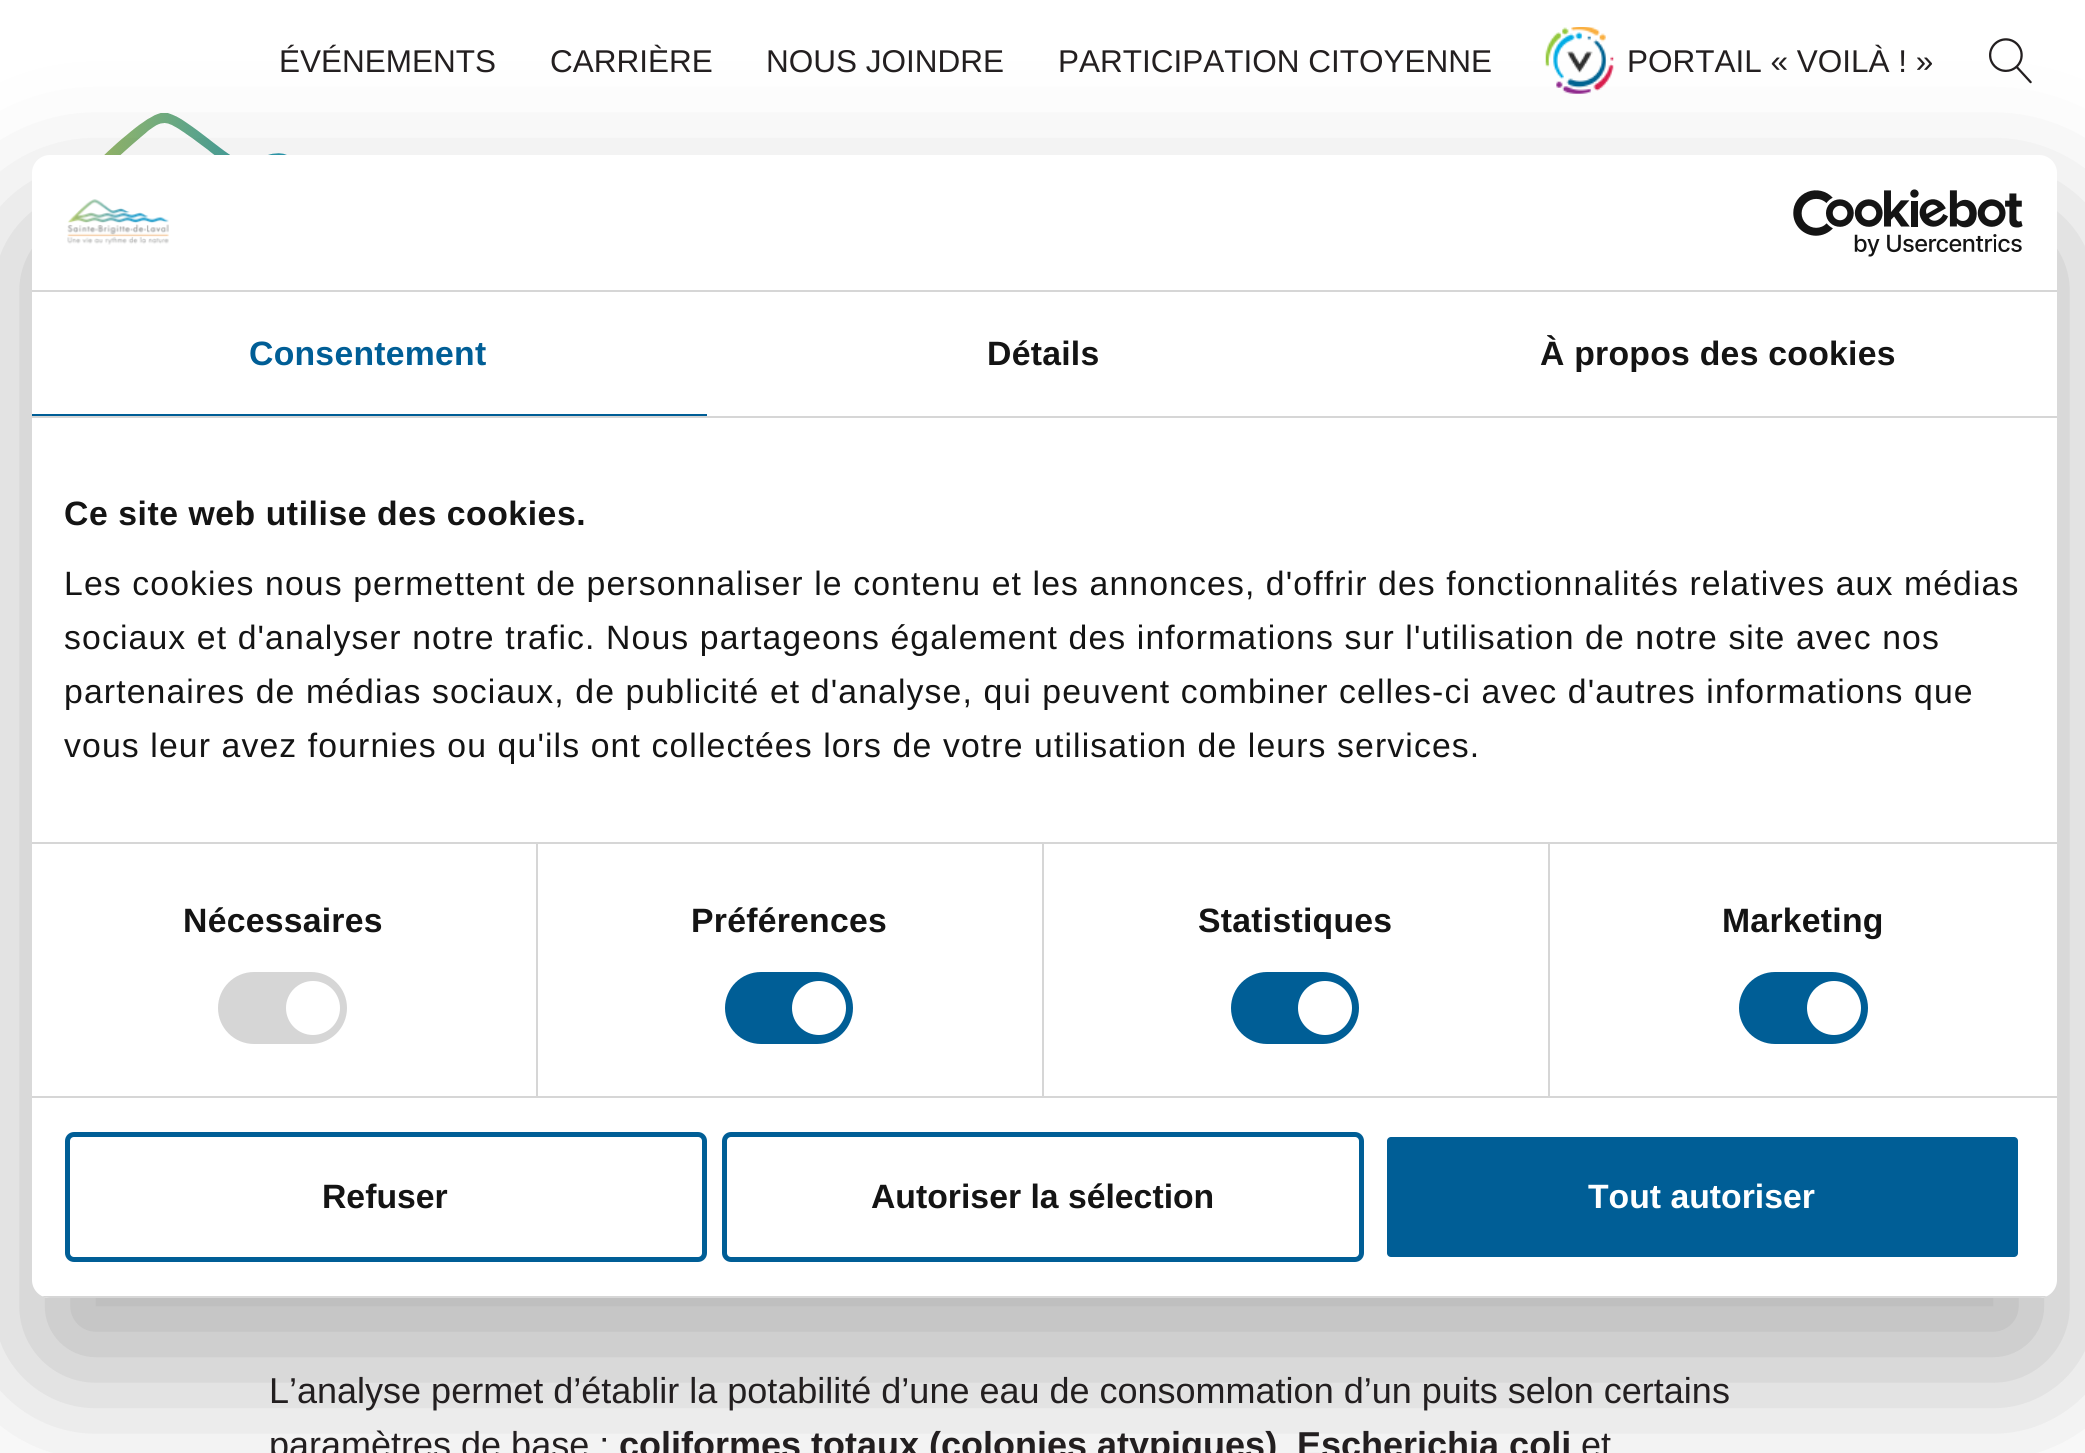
#include <cairo/cairo.h>
#include <math.h>
#include <stddef.h>

typedef struct { double x, y; const char *s; } line_t;
typedef struct { double x, y, w, h; unsigned color; } box_t;
static cairo_t *cr;

static void rgb(unsigned color)
{
	cairo_set_source_rgb(cr, (color >> 16) / 255.0, (color >> 8 & 255) / 255.0, (color & 255) / 255.0);
}

static void tracked(double x, double y, const char *s, double letter, double word)
{
	cairo_move_to(cr, x, y);
	while (*s) {
		char ch[5] = {0};
		int n = 0;
		do ch[n++] = *s++; while ((*s & 0xC0) == 0x80);
		cairo_show_text(cr, ch);
		cairo_rel_move_to(cr, letter + word * (*ch == ' '), 0);
	}
}

static void rrect(double x, double y, double w, double h, double r)
{
	cairo_new_sub_path(cr);
	cairo_arc(cr, x + w - r, y + h - r, r, 0, M_PI / 2);
	cairo_arc(cr, x + r, y + h - r, r, M_PI / 2, M_PI);
	cairo_arc(cr, x + r, y + r, r, M_PI, 1.5 * M_PI);
	cairo_arc(cr, x + w - r, y + r, r, 1.5 * M_PI, 2 * M_PI);
	cairo_close_path(cr);
}

static void soft_shadow(double x, double y, double w, double h, double r, double blur, double alpha)
{
	cairo_push_group_with_content(cr, CAIRO_CONTENT_ALPHA);
	cairo_set_operator(cr, CAIRO_OPERATOR_SOURCE);
	for (int i = 15; i >= -15 && fmin(w, h) + blur * i / 3 > 0; i -= 2) {
		double e = blur * i / 6;
		cairo_set_source_rgba(cr, 0, 0, 0, alpha * erfc((i - 1) / 8.5) / 2);
		rrect(x - e, y - e, w + 2 * e, h + 2 * e, fmax(0, fmin(r + e + blur * .6, fmin(w, h) / 2 + e)));
		cairo_fill(cr);
	}
	cairo_pattern_t *soft = cairo_pop_group(cr);
	cairo_mask(cr, soft);
	cairo_pattern_destroy(soft);
}

static void image(const char *path, double x, double y, double w, double h)
{
	cairo_surface_t *image = cairo_image_surface_create_from_png(path);
	cairo_save(cr);
	cairo_set_source_surface(cr, image, x, y);
	cairo_rectangle(cr, x, y, w, h);
	cairo_fill(cr);
	cairo_restore(cr);
	cairo_surface_destroy(image);
}

int main(void) {
	cairo_surface_t *surface = cairo_image_surface_create(CAIRO_FORMAT_RGB24, 2085, 1453);
	cr = cairo_create(surface);
	cairo_font_options_t *options = cairo_font_options_create();
	cairo_font_options_set_hint_metrics(options, CAIRO_HINT_METRICS_OFF);
	cairo_font_options_set_hint_style(options, CAIRO_HINT_STYLE_NONE);
	cairo_set_font_options(cr, options);
	cairo_set_miter_limit(cr, 4);
	rgb(0xffffff);
	cairo_paint(cr);
	image("img/1.png", 1545, 27, 69, 67);
	image("img/2.png", 1989, 38, 43, 46);
	image("img/3.png", 104, 113, 183, 42);
	rgb(0x000000);
	soft_shadow(32, 227, 2025, 1143, 18, 76.5, 0.3);
	rgb(0xffffff);
	rrect(32, 155, 2025, 1143, 18);
	cairo_fill(cr);
	rgb(0xd6d6d6);
	cairo_rectangle(cr, 32, 290, 2025, 2);
	cairo_fill(cr);
	image("img/4.png", 67, 199, 102, 46);
	image("img/5.png", 1793, 189, 230, 68);
	{
		static const box_t items[] = {
			{32, 416, 2025, 2, 0xd6d6d6},
			{32, 414, 675, 2, 0x005e96},
			{32, 842, 2025, 2, 0xd6d6d6},
			{32, 1096, 2025, 2, 0xd6d6d6},
			{536, 844, 2, 252, 0xd6d6d6},
		};
		for (size_t i = 0; i < sizeof items / sizeof *items; i++) {
			rgb(items[i].color);
			cairo_rectangle(cr, items[i].x, items[i].y, items[i].w, items[i].h);
			cairo_fill(cr);
		}
	}
	rrect(218, 972, 129, 72, 36);
	cairo_fill(cr);
	rgb(0xffffff);
	cairo_arc(cr, 313, 1008, 27, 0, 2 * M_PI);
	cairo_fill(cr);
	rgb(0xd6d6d6);
	cairo_rectangle(cr, 1042, 844, 2, 252);
	cairo_fill(cr);
	rgb(0x005e96);
	rrect(725, 972, 128, 72, 36);
	cairo_fill(cr);
	rgb(0xffffff);
	cairo_arc(cr, 819, 1008, 27, 0, 2 * M_PI);
	cairo_fill(cr);
	rgb(0xd6d6d6);
	cairo_rectangle(cr, 1548, 844, 2, 252);
	cairo_fill(cr);
	rgb(0x005e96);
	rrect(1231, 972, 128, 72, 36);
	cairo_fill(cr);
	rgb(0xffffff);
	cairo_arc(cr, 1325, 1008, 27, 0, 2 * M_PI);
	cairo_fill(cr);
	rgb(0x005e96);
	rrect(1739, 972, 129, 72, 36);
	cairo_fill(cr);
	rgb(0xffffff);
	cairo_arc(cr, 1834, 1008, 27, 0, 2 * M_PI);
	cairo_fill(cr);
	cairo_save(cr);
	rrect(32, 155, 2025, 1143, 18);
	cairo_clip(cr);
	rgb(0xd6d6d6);
	cairo_rectangle(cr, 42, 1296, 2005, 2);
	cairo_fill(cr);
	cairo_restore(cr);
	rrect(67.5, 1134.5, 637, 125, 6.5);
	rgb(0x005e96);
	cairo_set_line_width(cr, 5);
	cairo_stroke(cr);
	rrect(724.5, 1134.5, 637, 125, 6.5);
	cairo_stroke(cr);
	rrect(1384.5, 1134.5, 636, 125, 6.5);
	cairo_fill_preserve(cr);
	rgb(0xffffff);
	cairo_stroke(cr);
	cairo_select_font_face(cr, "Liberation Sans", CAIRO_FONT_SLANT_NORMAL, CAIRO_FONT_WEIGHT_NORMAL);
	cairo_set_font_size(cr, 31.5);
	rgb(0x231f20);
	{
		static const line_t items[] = {
			{279, 72, "ÉVÉNEMENTS"},
			{550, 72, "CARRIÈRE"},
			{766, 72, "NOUS JOINDRE"},
			{1058, 72, "PARTICIPATION CITOYENNE"},
			{1627, 72, "PORTAIL « VOILÀ ! »"},
		};
		for (size_t i = 0; i < sizeof items / sizeof *items; i++) {
			cairo_move_to(cr, items[i].x, items[i].y);
			cairo_show_text(cr, items[i].s);
		}
	}
	cairo_select_font_face(cr, "Liberation Sans", CAIRO_FONT_SLANT_NORMAL, CAIRO_FONT_WEIGHT_BOLD);
	cairo_set_font_size(cr, 33.75);
	rgb(0x005e96);
	tracked(249, 365, "Consentement", 0.25, 0);
	rgb(0x141414);
	tracked(987, 365, "Détails", 0.25, 0);
	tracked(1540, 365, "À propos des cookies", 0.25, 0);
	tracked(64, 525, "Ce site web utilise des cookies.", 0.55, 0);
	cairo_select_font_face(cr, "Liberation Sans", CAIRO_FONT_SLANT_NORMAL, CAIRO_FONT_WEIGHT_NORMAL);
	{
		static const line_t items[] = {
			{64, 595, "Les cookies nous permettent de personnaliser le contenu et les annonces, d'offrir des fonctionnalités relatives aux médias"},
			{64, 649, "sociaux et d'analyser notre trafic. Nous partageons également des informations sur l'utilisation de notre site avec nos"},
			{64, 703, "partenaires de médias sociaux, de publicité et d'analyse, qui peuvent combiner celles-ci avec d'autres informations que"},
			{64, 757, "vous leur avez fournies ou qu'ils ont collectées lors de votre utilisation de leurs services."},
		};
		for (size_t i = 0; i < sizeof items / sizeof *items; i++) {
			tracked(items[i].x, items[i].y, items[i].s, 1.12, 0);
		}
	}
	cairo_select_font_face(cr, "Liberation Sans", CAIRO_FONT_SLANT_NORMAL, CAIRO_FONT_WEIGHT_BOLD);
	{
		static const line_t items[] = {
			{183, 932, "Nécessaires"},
			{691, 932, "Préférences"},
			{1198, 932, "Statistiques"},
			{1722, 932, "Marketing"},
		};
		for (size_t i = 0; i < sizeof items / sizeof *items; i++) {
			tracked(items[i].x, items[i].y, items[i].s, 0.25, 0);
		}
	}
	cairo_move_to(cr, 322, 1208);
	cairo_show_text(cr, "Refuser");
	cairo_move_to(cr, 871, 1208);
	cairo_show_text(cr, "Autoriser la sélection");
	rgb(0xffffff);
	cairo_move_to(cr, 1588, 1208);
	cairo_show_text(cr, "Tout autoriser");
	cairo_select_font_face(cr, "Liberation Sans", CAIRO_FONT_SLANT_NORMAL, CAIRO_FONT_WEIGHT_NORMAL);
	cairo_set_font_size(cr, 36);
	rgb(0x231f20);
	cairo_move_to(cr, 269, 1403);
	cairo_show_text(cr, "L’analyse permet d’établir la potabilité d’une eau de consommation d’un puits selon certains");
	cairo_move_to(cr, 269, 1457);
	cairo_show_text(cr, "paramètres de base :");
	cairo_select_font_face(cr, "Liberation Sans", CAIRO_FONT_SLANT_NORMAL, CAIRO_FONT_WEIGHT_BOLD);
	cairo_move_to(cr, 619, 1457);
	cairo_show_text(cr, "coliformes totaux (colonies atypiques)");
	cairo_move_to(cr, 1297, 1457);
	cairo_show_text(cr, "Escherichia coli");
	cairo_select_font_face(cr, "Liberation Sans", CAIRO_FONT_SLANT_NORMAL, CAIRO_FONT_WEIGHT_NORMAL);
	cairo_move_to(cr, 1581, 1457);
	cairo_show_text(cr, "et");
	cairo_surface_write_to_png(surface, "page.png");
	cairo_font_options_destroy(options);
	cairo_destroy(cr);
	cairo_surface_destroy(surface);
	return 0;
}
